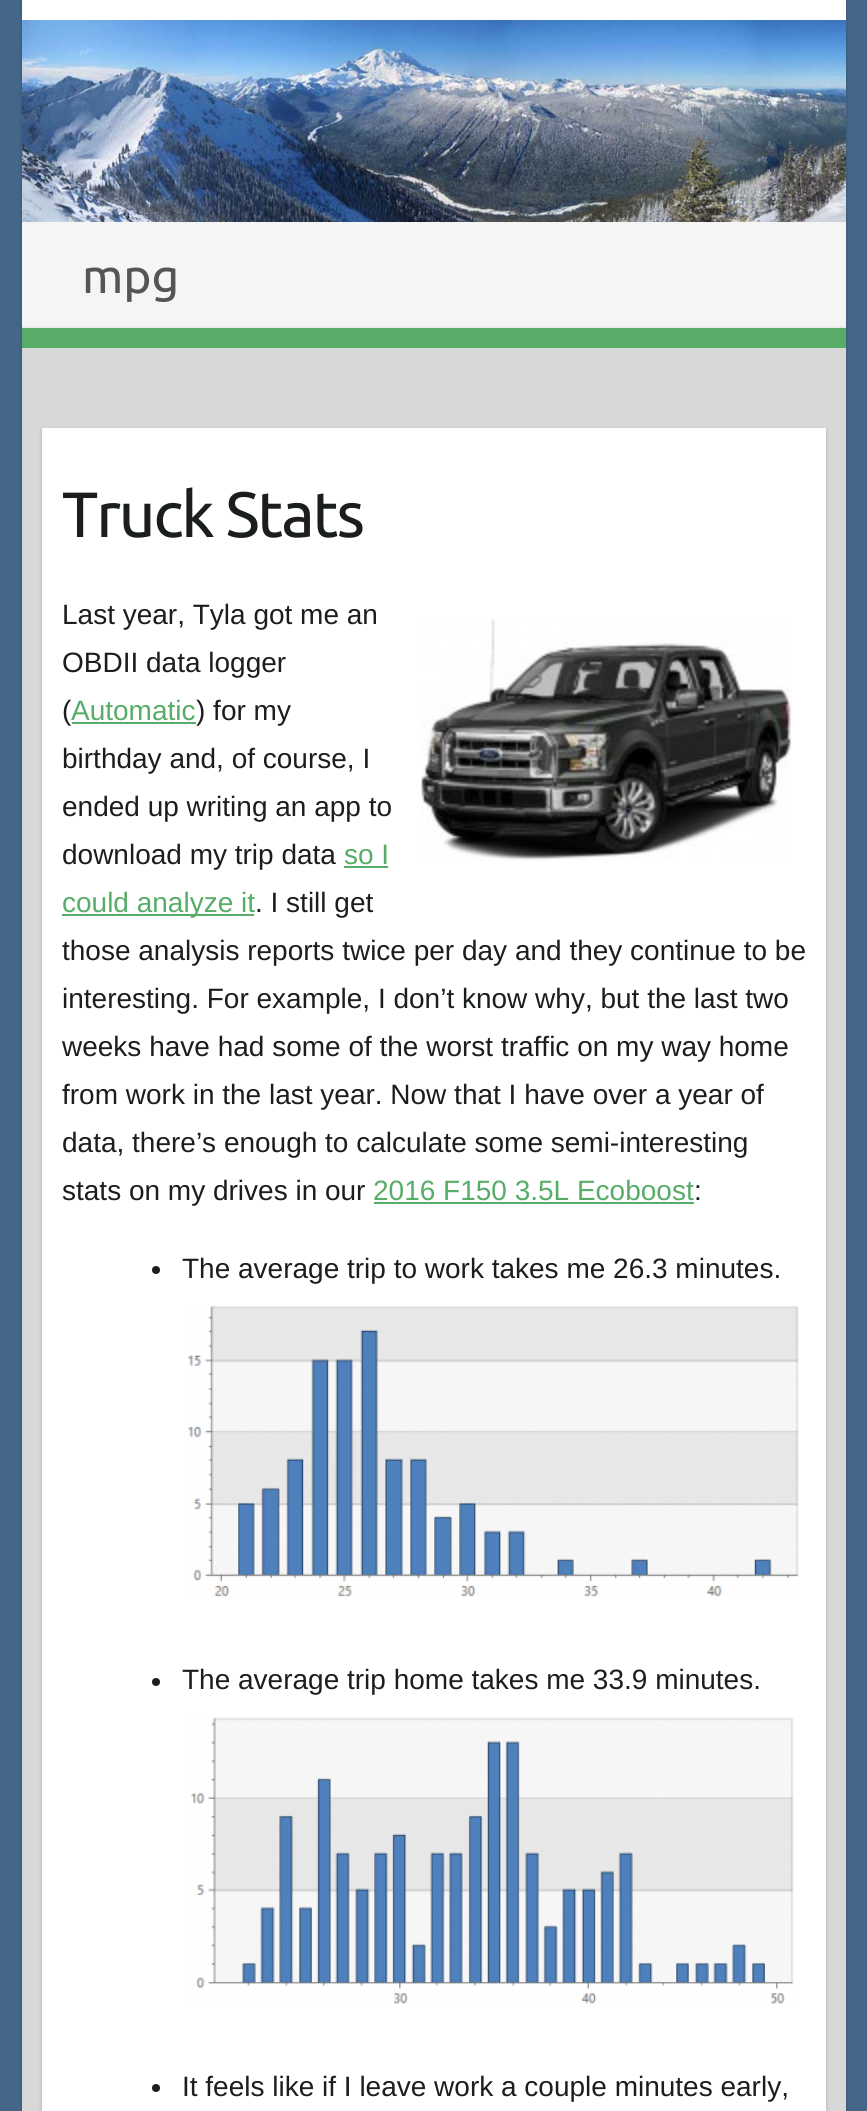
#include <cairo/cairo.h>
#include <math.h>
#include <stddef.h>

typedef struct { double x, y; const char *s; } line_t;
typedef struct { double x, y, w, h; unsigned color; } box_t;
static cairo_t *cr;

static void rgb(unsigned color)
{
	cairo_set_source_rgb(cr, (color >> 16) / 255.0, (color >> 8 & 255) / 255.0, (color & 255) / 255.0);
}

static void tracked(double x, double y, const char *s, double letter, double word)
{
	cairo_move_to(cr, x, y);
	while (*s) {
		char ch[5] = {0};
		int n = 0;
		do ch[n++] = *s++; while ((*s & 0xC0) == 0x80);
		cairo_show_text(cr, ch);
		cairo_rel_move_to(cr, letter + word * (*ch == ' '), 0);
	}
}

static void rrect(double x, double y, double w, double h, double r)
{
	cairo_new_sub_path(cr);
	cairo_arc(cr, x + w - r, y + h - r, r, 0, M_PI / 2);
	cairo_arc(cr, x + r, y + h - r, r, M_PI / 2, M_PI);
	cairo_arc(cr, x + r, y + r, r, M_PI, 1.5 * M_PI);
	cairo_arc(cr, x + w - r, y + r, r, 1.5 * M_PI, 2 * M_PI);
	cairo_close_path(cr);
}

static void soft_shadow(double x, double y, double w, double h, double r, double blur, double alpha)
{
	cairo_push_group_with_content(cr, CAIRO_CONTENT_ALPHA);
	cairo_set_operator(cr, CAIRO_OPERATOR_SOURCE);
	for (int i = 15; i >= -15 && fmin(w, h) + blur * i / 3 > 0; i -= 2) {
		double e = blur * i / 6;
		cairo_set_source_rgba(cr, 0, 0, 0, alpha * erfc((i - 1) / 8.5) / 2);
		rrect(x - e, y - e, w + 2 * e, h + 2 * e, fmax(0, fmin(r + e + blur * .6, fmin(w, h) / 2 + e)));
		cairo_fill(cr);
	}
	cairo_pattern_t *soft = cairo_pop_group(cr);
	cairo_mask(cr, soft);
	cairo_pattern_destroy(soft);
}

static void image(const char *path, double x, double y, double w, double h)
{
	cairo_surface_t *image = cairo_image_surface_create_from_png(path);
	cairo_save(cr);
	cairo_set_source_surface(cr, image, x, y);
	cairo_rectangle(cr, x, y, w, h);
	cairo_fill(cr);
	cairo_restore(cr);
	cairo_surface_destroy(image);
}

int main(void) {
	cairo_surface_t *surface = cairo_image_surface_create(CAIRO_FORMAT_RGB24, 867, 2111);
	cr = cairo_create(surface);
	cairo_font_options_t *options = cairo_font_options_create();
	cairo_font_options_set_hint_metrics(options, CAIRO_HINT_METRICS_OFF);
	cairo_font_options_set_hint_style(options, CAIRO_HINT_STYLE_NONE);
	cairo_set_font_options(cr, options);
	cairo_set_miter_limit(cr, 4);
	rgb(0x446789);
	cairo_paint(cr);
	rgb(0x000000);
	soft_shadow(22, -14, 824, 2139, 8, 2, 0.2);
	rgb(0xffffff);
	cairo_rectangle(cr, 22, 0, 824, 20);
	cairo_fill(cr);
	rgb(0x57ad68);
	cairo_rectangle(cr, 22, 328, 824, 20);
	cairo_fill(cr);
	image("img/1.png", 22, 20, 824, 202);
	{
		static const box_t items[] = {
			{22, 222, 824, 104, 0xf5f5f5},
			{22, 326, 824, 2, 0xeaeaea},
			{22, 348, 824, 1763, 0xd8d8d8},
		};
		for (size_t i = 0; i < sizeof items / sizeof *items; i++) {
			rgb(items[i].color);
			cairo_rectangle(cr, items[i].x, items[i].y, items[i].w, items[i].h);
			cairo_fill(cr);
		}
	}
	rgb(0x000000);
	soft_shadow(42, 430, 784, 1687, 0, 2, 0.2);
	rgb(0xffffff);
	cairo_rectangle(cr, 42, 428, 784, 1683);
	cairo_fill(cr);
	image("img/2.png", 421, 618, 371, 243);
	{
		static const box_t items[] = {
			{72, 722, 124, 2, 0x57ad68},
			{344, 866, 44, 2, 0x57ad68},
			{62, 914, 192, 2, 0x57ad68},
			{374, 1202, 320, 2, 0x57ad68},
		};
		for (size_t i = 0; i < sizeof items / sizeof *items; i++) {
			rgb(items[i].color);
			cairo_rectangle(cr, items[i].x, items[i].y, items[i].w, items[i].h);
			cairo_fill(cr);
		}
	}
	rgb(0x1d1d1d);
	cairo_arc(cr, 156, 1270, 4, 0, 2 * M_PI);
	cairo_fill(cr);
	image("img/3.png", 188, 1305, 611, 292);
	cairo_arc(cr, 156, 1682, 4, 0, 2 * M_PI);
	cairo_fill(cr);
	image("img/4.png", 190, 1717, 604, 287);
	cairo_arc(cr, 156, 2088, 4, 0, 2 * M_PI);
	cairo_fill(cr);
	cairo_select_font_face(cr, "Ubuntu", CAIRO_FONT_SLANT_NORMAL, CAIRO_FONT_WEIGHT_NORMAL);
	cairo_set_font_size(cr, 48);
	rgb(0x555555);
	cairo_move_to(cr, 82, 293);
	cairo_show_text(cr, "mpg");
	cairo_set_font_size(cr, 64);
	rgb(0x1b1e1f);
	tracked(62, 537, "Truck Stats", -2, 0);
	cairo_select_font_face(cr, "Liberation Sans", CAIRO_FONT_SLANT_NORMAL, CAIRO_FONT_WEIGHT_NORMAL);
	cairo_set_font_size(cr, 28);
	{
		static const line_t items[] = {
			{62, 624, "Last year, Tyla got me an"},
			{62, 672, "OBDII data logger"},
			{62, 720, "("},
		};
		for (size_t i = 0; i < sizeof items / sizeof *items; i++) {
			cairo_move_to(cr, items[i].x, items[i].y);
			cairo_show_text(cr, items[i].s);
		}
	}
	rgb(0x57ad68);
	cairo_move_to(cr, 71, 720);
	cairo_show_text(cr, "Automatic");
	rgb(0x1b1e1f);
	{
		static const line_t items[] = {
			{196, 720, ") for my"},
			{62, 768, "birthday and, of course, I"},
			{62, 816, "ended up writing an app to"},
			{62, 864, "download my trip data"},
		};
		for (size_t i = 0; i < sizeof items / sizeof *items; i++) {
			cairo_move_to(cr, items[i].x, items[i].y);
			cairo_show_text(cr, items[i].s);
		}
	}
	rgb(0x57ad68);
	cairo_move_to(cr, 344, 864);
	cairo_show_text(cr, "so I");
	cairo_move_to(cr, 62, 912);
	cairo_show_text(cr, "could analyze it");
	rgb(0x1b1e1f);
	{
		static const line_t items[] = {
			{255, 912, ". I still get"},
			{62, 960, "those analysis reports twice per day and they continue to be"},
			{62, 1008, "interesting. For example, I don’t know why, but the last two"},
			{62, 1056, "weeks have had some of the worst traffic on my way home"},
			{62, 1104, "from work in the last year. Now that I have over a year of"},
			{62, 1152, "data, there’s enough to calculate some semi-interesting"},
			{62, 1200, "stats on my drives in our"},
		};
		for (size_t i = 0; i < sizeof items / sizeof *items; i++) {
			cairo_move_to(cr, items[i].x, items[i].y);
			cairo_show_text(cr, items[i].s);
		}
	}
	rgb(0x57ad68);
	cairo_move_to(cr, 373, 1200);
	cairo_show_text(cr, "2016 F150 3.5L Ecoboost");
	rgb(0x1b1e1f);
	{
		static const line_t items[] = {
			{694, 1200, ":"},
			{182, 1278, "The average trip to work takes me 26.3 minutes."},
			{182, 1689, "The average trip home takes me 33.9 minutes."},
			{182, 2096, "It feels like if I leave work a couple minutes early,"},
		};
		for (size_t i = 0; i < sizeof items / sizeof *items; i++) {
			cairo_move_to(cr, items[i].x, items[i].y);
			cairo_show_text(cr, items[i].s);
		}
	}
	cairo_surface_write_to_png(surface, "page.png");
	cairo_font_options_destroy(options);
	cairo_destroy(cr);
	cairo_surface_destroy(surface);
	return 0;
}
